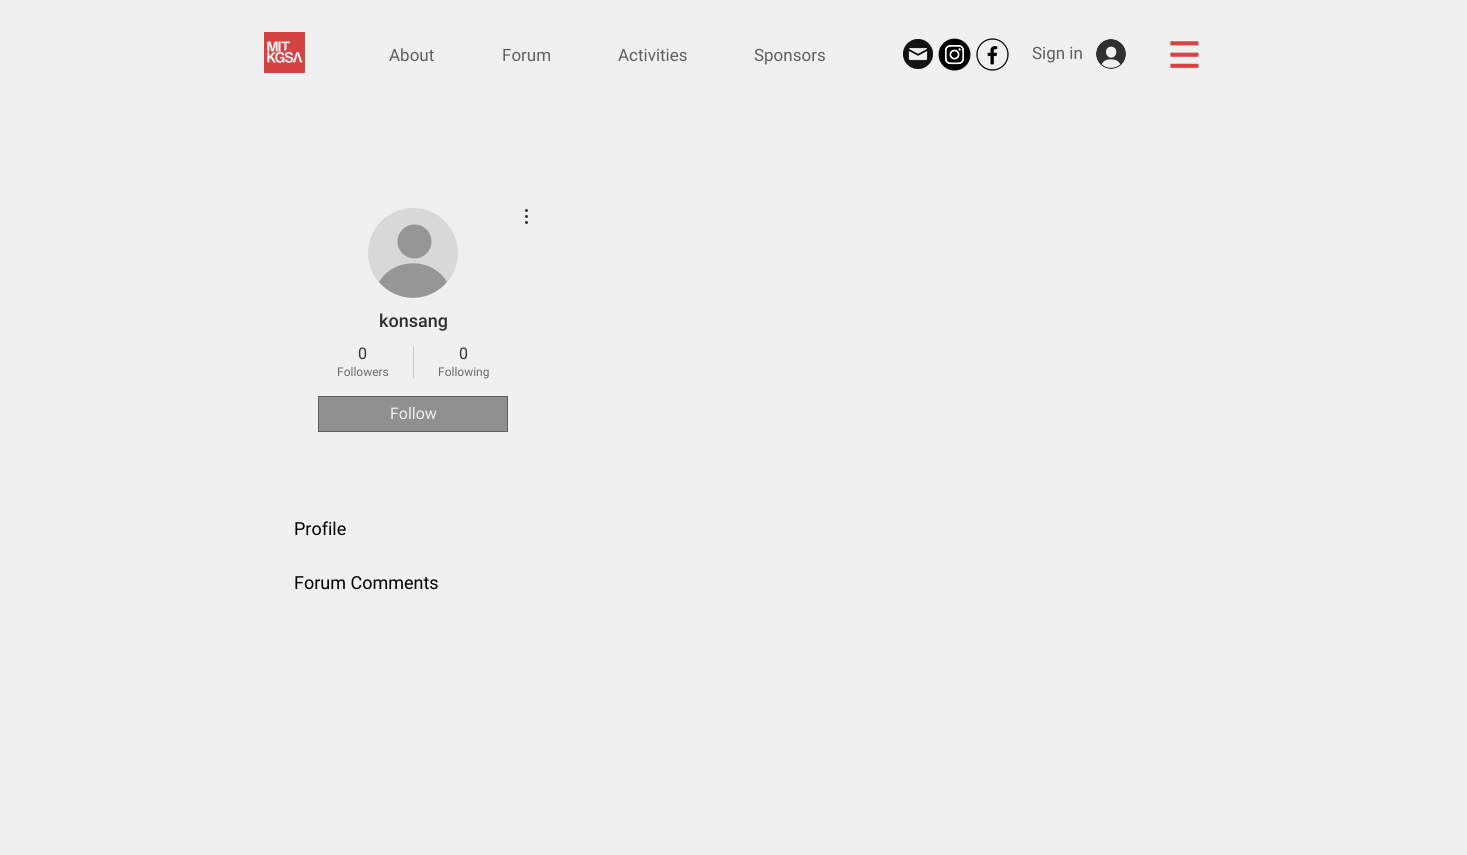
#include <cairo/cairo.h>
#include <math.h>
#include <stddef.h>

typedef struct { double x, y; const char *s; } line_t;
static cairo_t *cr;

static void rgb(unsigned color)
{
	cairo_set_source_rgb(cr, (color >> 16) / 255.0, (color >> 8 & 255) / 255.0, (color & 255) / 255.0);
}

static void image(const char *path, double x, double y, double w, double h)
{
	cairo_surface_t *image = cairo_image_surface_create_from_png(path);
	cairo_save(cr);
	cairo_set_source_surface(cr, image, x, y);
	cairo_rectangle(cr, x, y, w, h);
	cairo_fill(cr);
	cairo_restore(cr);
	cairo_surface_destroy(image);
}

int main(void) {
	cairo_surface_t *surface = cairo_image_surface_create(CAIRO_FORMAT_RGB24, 1467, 855);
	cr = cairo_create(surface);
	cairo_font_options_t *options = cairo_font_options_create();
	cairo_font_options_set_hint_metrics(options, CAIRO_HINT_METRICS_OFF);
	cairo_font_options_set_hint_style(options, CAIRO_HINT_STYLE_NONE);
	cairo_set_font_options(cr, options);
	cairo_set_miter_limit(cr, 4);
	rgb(0xf0f0f0);
	cairo_paint(cr);
	image("img/1.png", 264, 32, 41, 41);
	image("img/2.png", 903, 39, 30, 30);
	image("img/3.png", 938, 38, 33, 33);
	image("img/4.png", 976, 38, 33, 33);
	image("img/5.png", 1096, 39, 30, 30);
	image("img/6.png", 1170, 41, 29, 27);
	rgb(0xd8d8d8);
	cairo_arc(cr, 413, 253, 45, 0, 2 * M_PI);
	cairo_fill(cr);
	rgb(0x969696);
	cairo_arc(cr, 414.5, 241.5, 17, 0, 2 * M_PI);
	cairo_fill(cr);
	cairo_new_path(cr);
	cairo_move_to(cr, 447, 282);
	cairo_curve_to(cr, 429, 303, 397, 303, 379, 282);
	cairo_curve_to(cr, 394, 257, 432, 257, 447, 282);
	cairo_close_path(cr);
	cairo_fill(cr);
	image("img/7.png", 525, 209, 3, 15);
	rgb(0xcacaca);
	cairo_rectangle(cr, 413, 346, 1, 32);
	cairo_fill(cr);
	rgb(0x909090);
	cairo_rectangle(cr, 318.5, 396.5, 189, 35);
	cairo_fill_preserve(cr);
	rgb(0x606060);
	cairo_set_line_width(cr, 1);
	cairo_stroke(cr);
	cairo_select_font_face(cr, "Roboto", CAIRO_FONT_SLANT_NORMAL, CAIRO_FONT_WEIGHT_NORMAL);
	cairo_set_font_size(cr, 17);
	{
		static const line_t items[] = {
			{389, 61, "About"},
			{502, 61, "Forum"},
			{618, 61, "Activities"},
			{754, 61, "Sponsors"},
			{1032, 59, "Sign in"},
		};
		for (size_t i = 0; i < sizeof items / sizeof *items; i++) {
			cairo_move_to(cr, items[i].x, items[i].y);
			cairo_show_text(cr, items[i].s);
		}
	}
	cairo_select_font_face(cr, "Roboto Medium", CAIRO_FONT_SLANT_NORMAL, CAIRO_FONT_WEIGHT_NORMAL);
	cairo_set_font_size(cr, 18);
	rgb(0x303030);
	cairo_move_to(cr, 379, 327);
	cairo_show_text(cr, "konsang");
	cairo_select_font_face(cr, "Roboto", CAIRO_FONT_SLANT_NORMAL, CAIRO_FONT_WEIGHT_NORMAL);
	cairo_set_font_size(cr, 16);
	cairo_move_to(cr, 358, 359);
	cairo_show_text(cr, "0");
	cairo_set_font_size(cr, 12);
	rgb(0x6a6a6a);
	cairo_move_to(cr, 337, 376);
	cairo_show_text(cr, "Followers");
	cairo_set_font_size(cr, 16);
	rgb(0x303030);
	cairo_move_to(cr, 459, 359);
	cairo_show_text(cr, "0");
	cairo_set_font_size(cr, 12);
	rgb(0x6a6a6a);
	cairo_move_to(cr, 438, 376);
	cairo_show_text(cr, "Following");
	cairo_set_font_size(cr, 16);
	rgb(0xf0f0f0);
	cairo_move_to(cr, 390, 419);
	cairo_show_text(cr, "Follow");
	cairo_set_font_size(cr, 18);
	rgb(0x000000);
	cairo_move_to(cr, 294, 535);
	cairo_show_text(cr, "Profile");
	cairo_move_to(cr, 294, 589);
	cairo_show_text(cr, "Forum Comments");
	cairo_surface_write_to_png(surface, "page.png");
	cairo_font_options_destroy(options);
	cairo_destroy(cr);
	cairo_surface_destroy(surface);
	return 0;
}
